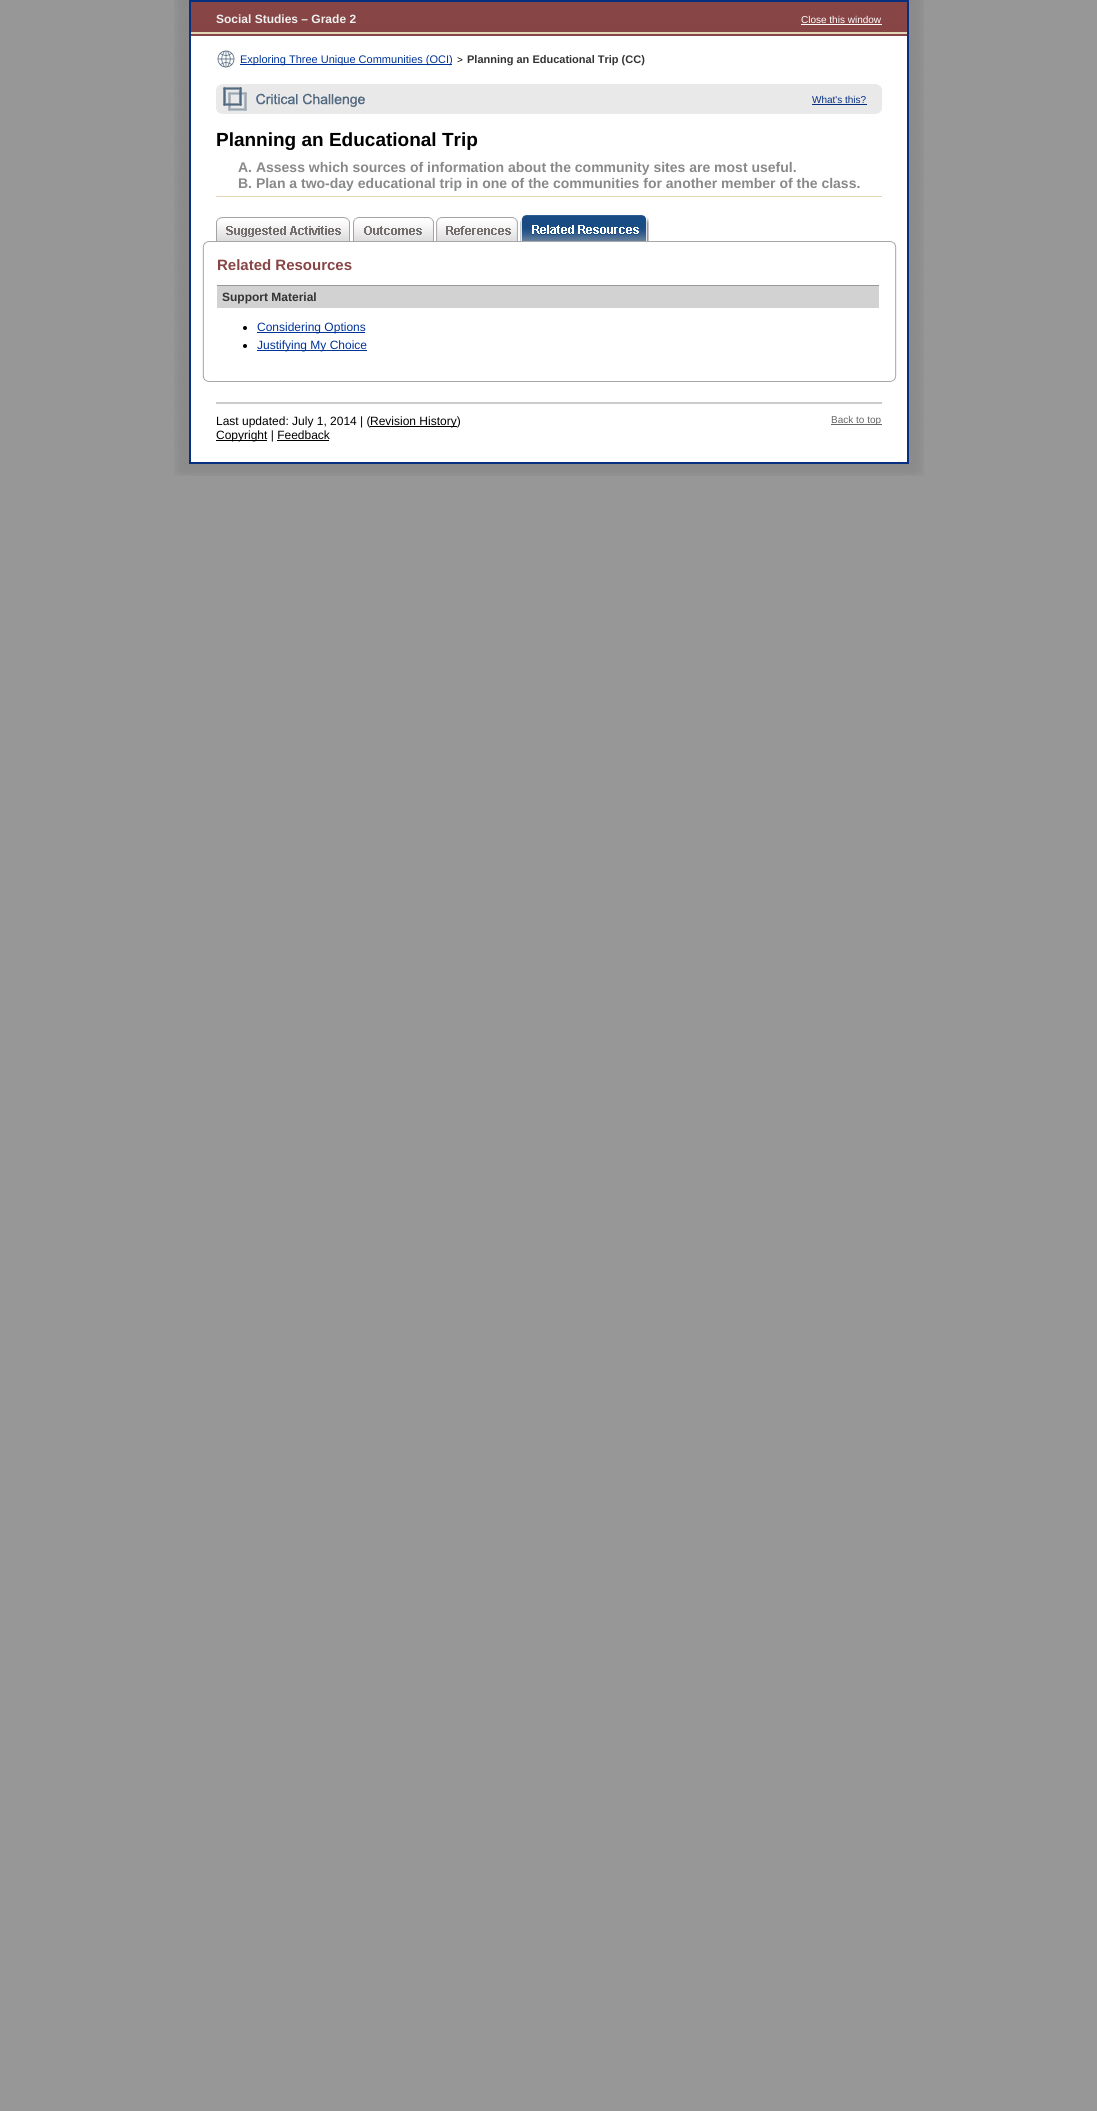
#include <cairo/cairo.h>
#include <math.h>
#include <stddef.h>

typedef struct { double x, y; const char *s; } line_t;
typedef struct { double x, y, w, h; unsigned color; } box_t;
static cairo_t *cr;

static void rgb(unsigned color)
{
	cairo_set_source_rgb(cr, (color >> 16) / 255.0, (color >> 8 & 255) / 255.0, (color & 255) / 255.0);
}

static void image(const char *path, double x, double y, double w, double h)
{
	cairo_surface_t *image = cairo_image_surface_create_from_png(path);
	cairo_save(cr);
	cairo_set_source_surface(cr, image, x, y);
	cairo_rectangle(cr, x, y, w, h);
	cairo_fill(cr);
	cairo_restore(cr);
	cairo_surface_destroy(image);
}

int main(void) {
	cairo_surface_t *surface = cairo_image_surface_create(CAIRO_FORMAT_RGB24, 1097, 2111);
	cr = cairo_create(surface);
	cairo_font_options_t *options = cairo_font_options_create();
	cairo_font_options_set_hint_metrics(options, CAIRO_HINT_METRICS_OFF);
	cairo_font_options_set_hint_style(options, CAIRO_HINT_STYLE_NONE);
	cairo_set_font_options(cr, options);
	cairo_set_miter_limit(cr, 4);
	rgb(0x979797);
	cairo_paint(cr);
	image("img/1.png", 174, 0, 15, 464);
	rgb(0xffffff);
	cairo_rectangle(cr, 191, 36, 716, 426);
	cairo_fill(cr);
	cairo_rectangle(cr, 190, 1, 718, 462);
	rgb(0x062f80);
	cairo_stroke(cr);
	image("img/2.png", 191, 2, 716, 34);
	rgb(0xffffff);
	cairo_rectangle(cr, 801, 24, 81, 1);
	cairo_fill(cr);
	image("img/3.png", 216, 49, 21, 19);
	rgb(0x003399);
	cairo_rectangle(cr, 240, 64, 212, 1);
	cairo_fill(cr);
	rgb(0xe3d6b3);
	cairo_rectangle(cr, 216, 196, 666, 1);
	cairo_fill(cr);
	image("img/4.png", 216, 84, 219, 30);
	rgb(0xeae9e9);
	cairo_rectangle(cr, 435, 84, 363, 30);
	cairo_fill(cr);
	image("img/5.png", 798, 84, 84, 30);
	rgb(0x062f80);
	cairo_rectangle(cr, 812, 104, 55, 1);
	cairo_fill(cr);
	image("img/6.png", 216, 216, 134, 25);
	image("img/7.png", 353, 217, 81, 24);
	image("img/8.png", 436, 216, 82, 25);
	image("img/9.png", 520, 215, 129, 26);
	image("img/10.png", 202, 241, 695, 6);
	image("img/11.png", 202, 247, 695, 129);
	rgb(0xd2d2d2);
	cairo_rectangle(cr, 217, 286, 662, 22);
	cairo_fill(cr);
	rgb(0x999999);
	cairo_rectangle(cr, 217, 285, 662, 1);
	cairo_fill(cr);
	rgb(0x000000);
	cairo_arc(cr, 245, 328, 2, 0, 2 * M_PI);
	cairo_fill(cr);
	rgb(0x003399);
	cairo_rectangle(cr, 257, 332, 108, 1);
	cairo_fill(cr);
	rgb(0x000000);
	cairo_arc(cr, 245, 346, 2, 0, 2 * M_PI);
	cairo_fill(cr);
	rgb(0x003399);
	cairo_rectangle(cr, 257, 350, 110, 1);
	cairo_fill(cr);
	image("img/12.png", 202, 376, 695, 6);
	{
		static const box_t items[] = {
			{216, 402, 666, 2, 0xcccccc},
			{370, 426, 87, 1, 0x000000},
			{216, 440, 51, 1, 0x000000},
			{277, 440, 52, 1, 0x000000},
			{831, 424, 51, 1, 0x666666},
		};
		for (size_t i = 0; i < sizeof items / sizeof *items; i++) {
			rgb(items[i].color);
			cairo_rectangle(cr, items[i].x, items[i].y, items[i].w, items[i].h);
			cairo_fill(cr);
		}
	}
	image("img/13.png", 909, 0, 15, 464);
	image("img/14.png", 174, 464, 15, 12);
	image("img/15.png", 189, 464, 720, 12);
	image("img/16.png", 909, 464, 15, 12);
	cairo_select_font_face(cr, "Liberation Sans", CAIRO_FONT_SLANT_NORMAL, CAIRO_FONT_WEIGHT_BOLD);
	cairo_set_font_size(cr, 12);
	rgb(0xf0f0f0);
	cairo_move_to(cr, 216, 23);
	cairo_show_text(cr, "Social Studies – Grade 2");
	cairo_select_font_face(cr, "Liberation Sans", CAIRO_FONT_SLANT_NORMAL, CAIRO_FONT_WEIGHT_NORMAL);
	cairo_set_font_size(cr, 10);
	rgb(0xffffff);
	cairo_move_to(cr, 801, 23);
	cairo_show_text(cr, "Close this window");
	cairo_set_font_size(cr, 11);
	rgb(0x003399);
	cairo_move_to(cr, 240, 63);
	cairo_show_text(cr, "Exploring Three Unique Communities (OCI)");
	cairo_set_font_size(cr, 10);
	rgb(0x000000);
	cairo_move_to(cr, 457, 63);
	cairo_show_text(cr, ">");
	cairo_select_font_face(cr, "Liberation Sans", CAIRO_FONT_SLANT_NORMAL, CAIRO_FONT_WEIGHT_BOLD);
	cairo_set_font_size(cr, 11);
	rgb(0x333333);
	cairo_move_to(cr, 467, 63);
	cairo_show_text(cr, "Planning an Educational Trip (CC)");
	cairo_select_font_face(cr, "Liberation Sans", CAIRO_FONT_SLANT_NORMAL, CAIRO_FONT_WEIGHT_NORMAL);
	cairo_set_font_size(cr, 10);
	rgb(0x062f80);
	cairo_move_to(cr, 812, 103);
	cairo_show_text(cr, "What's this?");
	cairo_select_font_face(cr, "Liberation Sans", CAIRO_FONT_SLANT_NORMAL, CAIRO_FONT_WEIGHT_BOLD);
	cairo_set_font_size(cr, 19);
	rgb(0x000000);
	cairo_move_to(cr, 216, 146);
	cairo_show_text(cr, "Planning an Educational Trip");
	cairo_set_font_size(cr, 14);
	rgb(0x888989);
	cairo_move_to(cr, 238, 172);
	cairo_show_text(cr, "A. Assess which sources of information about the community sites are most useful.");
	cairo_move_to(cr, 238, 188);
	cairo_show_text(cr, "B. Plan a two-day educational trip in one of the communities for another member of the class.");
	cairo_set_font_size(cr, 15);
	rgb(0x874545);
	cairo_move_to(cr, 217, 270);
	cairo_show_text(cr, "Related Resources");
	cairo_set_font_size(cr, 12);
	rgb(0x333333);
	cairo_move_to(cr, 222, 301);
	cairo_show_text(cr, "Support Material");
	cairo_select_font_face(cr, "Liberation Sans", CAIRO_FONT_SLANT_NORMAL, CAIRO_FONT_WEIGHT_NORMAL);
	rgb(0x003399);
	cairo_move_to(cr, 257, 331);
	cairo_show_text(cr, "Considering Options");
	cairo_move_to(cr, 257, 349);
	cairo_show_text(cr, "Justifying My Choice");
	rgb(0x000000);
	{
		static const line_t items[] = {
			{216, 425, "Last updated: July 1, 2014 | ("},
			{370, 425, "Revision History)"},
			{216, 439, "Copyright | Feedback"},
		};
		for (size_t i = 0; i < sizeof items / sizeof *items; i++) {
			cairo_move_to(cr, items[i].x, items[i].y);
			cairo_show_text(cr, items[i].s);
		}
	}
	cairo_set_font_size(cr, 10);
	rgb(0x666666);
	cairo_move_to(cr, 831, 423);
	cairo_show_text(cr, "Back to top");
	cairo_surface_write_to_png(surface, "page.png");
	cairo_font_options_destroy(options);
	cairo_destroy(cr);
	cairo_surface_destroy(surface);
	return 0;
}
